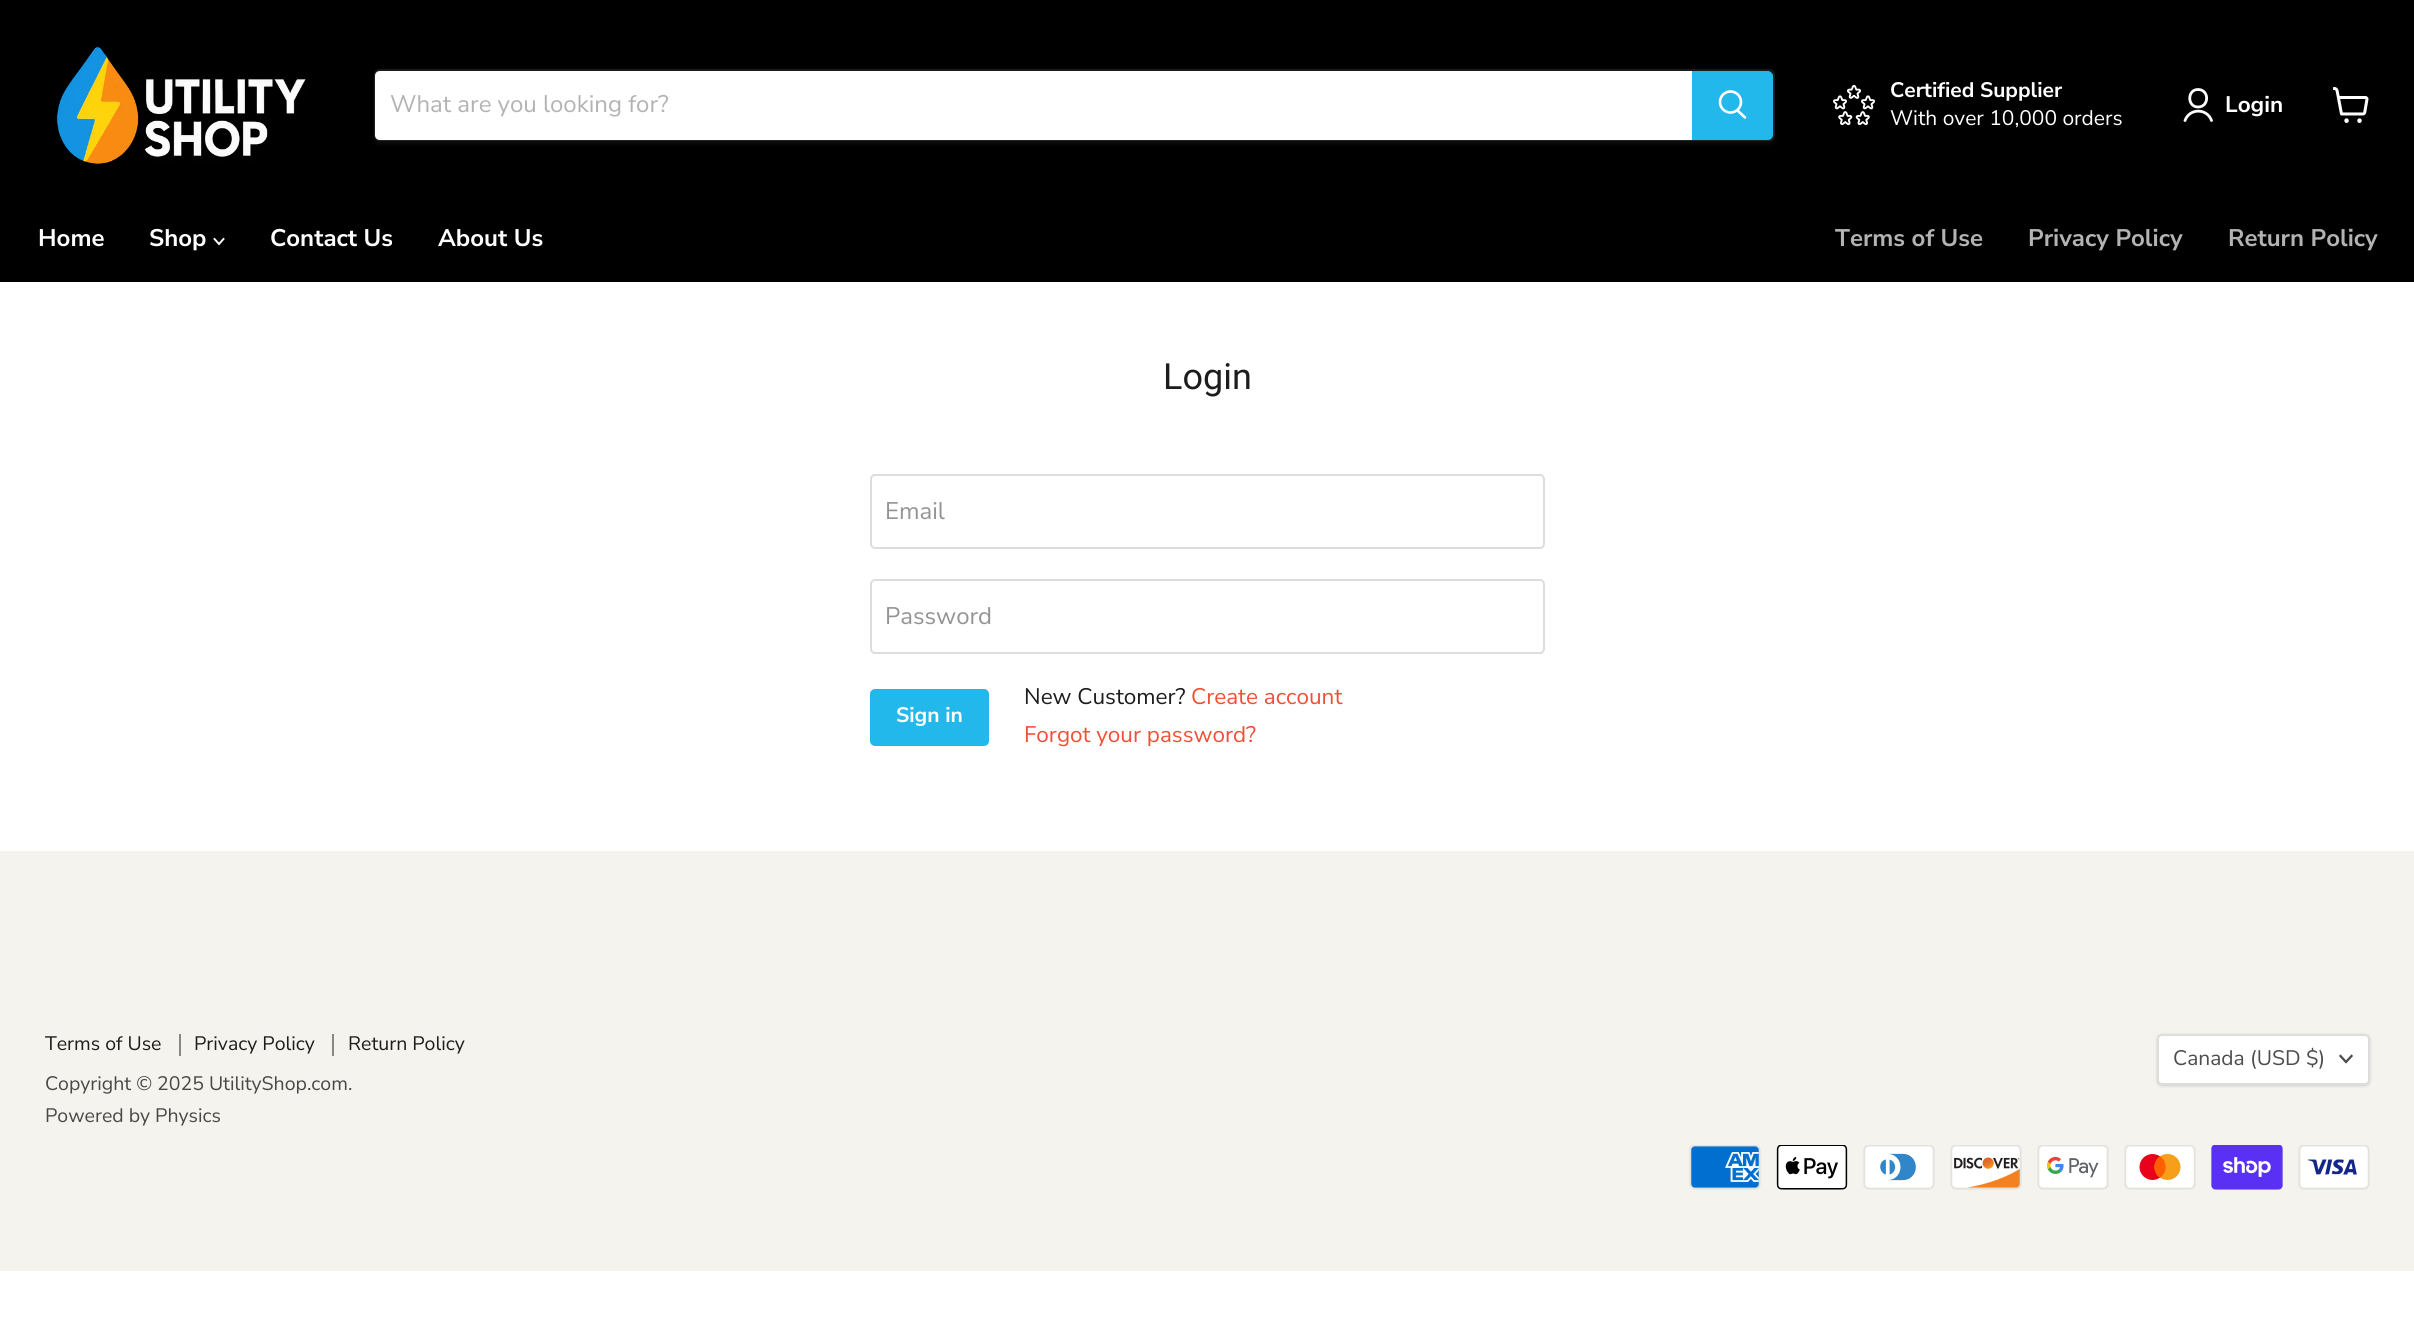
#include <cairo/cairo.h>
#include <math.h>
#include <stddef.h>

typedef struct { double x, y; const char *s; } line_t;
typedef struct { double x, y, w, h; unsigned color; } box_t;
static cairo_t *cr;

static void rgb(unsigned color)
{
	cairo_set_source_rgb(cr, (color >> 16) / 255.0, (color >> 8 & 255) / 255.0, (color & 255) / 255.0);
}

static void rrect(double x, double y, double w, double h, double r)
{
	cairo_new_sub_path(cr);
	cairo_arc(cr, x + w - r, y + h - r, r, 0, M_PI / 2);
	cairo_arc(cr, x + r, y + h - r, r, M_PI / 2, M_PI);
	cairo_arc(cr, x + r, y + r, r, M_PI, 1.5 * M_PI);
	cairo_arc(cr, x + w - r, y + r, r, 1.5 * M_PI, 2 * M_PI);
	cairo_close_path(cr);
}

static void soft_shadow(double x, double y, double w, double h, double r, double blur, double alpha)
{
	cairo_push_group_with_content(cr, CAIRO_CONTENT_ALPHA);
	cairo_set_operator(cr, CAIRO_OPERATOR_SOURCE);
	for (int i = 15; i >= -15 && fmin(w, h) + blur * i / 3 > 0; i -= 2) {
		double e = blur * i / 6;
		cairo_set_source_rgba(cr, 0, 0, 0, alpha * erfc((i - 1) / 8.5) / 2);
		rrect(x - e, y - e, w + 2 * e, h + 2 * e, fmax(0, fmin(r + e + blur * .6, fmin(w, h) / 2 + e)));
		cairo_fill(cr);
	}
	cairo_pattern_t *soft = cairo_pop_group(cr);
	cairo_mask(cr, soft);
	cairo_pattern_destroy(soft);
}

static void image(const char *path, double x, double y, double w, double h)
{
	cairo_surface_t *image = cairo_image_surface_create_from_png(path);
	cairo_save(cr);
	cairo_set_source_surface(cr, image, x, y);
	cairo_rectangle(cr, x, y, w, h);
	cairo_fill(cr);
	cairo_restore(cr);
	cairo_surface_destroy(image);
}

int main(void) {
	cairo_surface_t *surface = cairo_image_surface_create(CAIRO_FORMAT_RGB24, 2414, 1330);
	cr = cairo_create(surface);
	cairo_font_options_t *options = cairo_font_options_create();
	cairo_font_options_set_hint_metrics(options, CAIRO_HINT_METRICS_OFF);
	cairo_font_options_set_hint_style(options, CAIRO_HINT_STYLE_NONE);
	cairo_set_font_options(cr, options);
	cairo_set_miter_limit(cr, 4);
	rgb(0xffffff);
	cairo_paint(cr);
	rgb(0x000000);
	cairo_rectangle(cr, 0, 0, 2414, 282);
	cairo_fill(cr);
	image("img/1.png", 56, 46, 250, 119);
	rgb(0x808080);
	soft_shadow(374, 72, 1401, 72, 6, 2, 0.11);
	rrect(375, 70, 1399, 70, 5);
	cairo_set_source_rgba(cr, 0.502, 0.502, 0.502, 0.2);
	cairo_stroke(cr);
	rgb(0xffffff);
	cairo_new_path(cr);
	cairo_move_to(cr, 380, 71);
	cairo_line_to(cr, 1692, 71);
	cairo_line_to(cr, 1692, 140);
	cairo_line_to(cr, 380, 140);
	cairo_curve_to(cr, 377, 140, 375, 138, 375, 135);
	cairo_line_to(cr, 375, 76);
	cairo_curve_to(cr, 375, 73, 377, 71, 380, 71);
	cairo_close_path(cr);
	cairo_fill(cr);
	rgb(0x23b8eb);
	cairo_new_path(cr);
	cairo_move_to(cr, 1693, 72);
	cairo_line_to(cr, 1768, 72);
	cairo_curve_to(cr, 1770, 72, 1772, 74, 1772, 76);
	cairo_line_to(cr, 1772, 135);
	cairo_curve_to(cr, 1772, 137, 1770, 139, 1768, 139);
	cairo_line_to(cr, 1693, 139);
	cairo_close_path(cr);
	cairo_fill_preserve(cr);
	cairo_stroke(cr);
	cairo_new_path(cr);
	cairo_move_to(cr, 1745, 117.5);
	cairo_line_to(cr, 1737.5, 110.5);
	rgb(0xffffff);
	cairo_set_line_width(cr, 2.6);
	cairo_set_line_cap(cr, CAIRO_LINE_CAP_ROUND);
	cairo_stroke(cr);
	cairo_arc(cr, 1730.5, 102, 10.5, 0, 2 * M_PI);
	cairo_set_line_cap(cr, CAIRO_LINE_CAP_BUTT);
	cairo_stroke(cr);
	image("img/2.png", 1833, 84, 42, 42);
	cairo_new_path(cr);
	cairo_move_to(cr, 2198, 107);
	cairo_curve_to(cr, 2209.5, 107, 2209.5, 89.5, 2198, 89.5);
	cairo_curve_to(cr, 2187, 89.5, 2187, 107, 2198, 107);
	cairo_close_path(cr);
	cairo_move_to(cr, 2211.5, 120.5);
	cairo_curve_to(cr, 2207, 108, 2189.5, 108, 2185, 120.5);
	cairo_set_line_width(cr, 2.8);
	cairo_set_line_cap(cr, CAIRO_LINE_CAP_ROUND);
	cairo_set_line_join(cr, CAIRO_LINE_JOIN_ROUND);
	cairo_stroke(cr);
	image("img/3.png", 2333, 87, 36, 36);
	cairo_new_path(cr);
	cairo_move_to(cr, 219, 244);
	cairo_line_to(cr, 223.5, 239);
	cairo_move_to(cr, 219, 244);
	cairo_line_to(cr, 214.5, 239);
	cairo_set_line_width(cr, 1.9);
	cairo_set_line_cap(cr, CAIRO_LINE_CAP_SQUARE);
	cairo_set_line_join(cr, CAIRO_LINE_JOIN_MITER);
	cairo_stroke(cr);
	rrect(871, 475, 673, 73, 4);
	rgb(0xdddddd);
	cairo_set_line_width(cr, 2);
	cairo_set_line_cap(cr, CAIRO_LINE_CAP_BUTT);
	cairo_stroke(cr);
	rrect(871, 580, 673, 73, 4);
	cairo_stroke(cr);
	rgb(0x23b8eb);
	rrect(871, 690, 117, 55, 4);
	cairo_fill_preserve(cr);
	cairo_stroke(cr);
	{
		static const box_t items[] = {
			{0, 851, 2414, 420, 0xf5f3ed},
			{179, 1034, 2, 22, 0x898885},
			{332, 1034, 2, 22, 0x898885},
		};
		for (size_t i = 0; i < sizeof items / sizeof *items; i++) {
			rgb(items[i].color);
			cairo_rectangle(cr, items[i].x, items[i].y, items[i].w, items[i].h);
			cairo_fill(cr);
		}
	}
	rgb(0x000000);
	soft_shadow(2157, 1035, 213, 51, 5, 1.5, 0.15);
	rgb(0xffffff);
	rrect(2158, 1035, 211, 49, 4);
	cairo_fill_preserve(cr);
	rgb(0xdddddd);
	cairo_stroke(cr);
	cairo_new_path(cr);
	cairo_move_to(cr, 2346, 1062);
	cairo_line_to(cr, 2351.5, 1056);
	cairo_move_to(cr, 2346, 1062);
	cairo_line_to(cr, 2340.5, 1056);
	rgb(0x4d4d4d);
	cairo_set_line_width(cr, 2.3);
	cairo_set_line_cap(cr, CAIRO_LINE_CAP_SQUARE);
	cairo_stroke(cr);
	image("img/4.png", 1689, 1145, 72, 45);
	image("img/5.png", 1776, 1145, 72, 45);
	image("img/6.png", 1863, 1145, 72, 45);
	image("img/7.png", 1950, 1145, 72, 45);
	image("img/8.png", 2037, 1145, 72, 45);
	image("img/9.png", 2124, 1145, 72, 45);
	image("img/10.png", 2211, 1145, 72, 45);
	image("img/11.png", 2298, 1145, 72, 45);
	cairo_select_font_face(cr, "Nunito Sans", CAIRO_FONT_SLANT_NORMAL, CAIRO_FONT_WEIGHT_NORMAL);
	cairo_set_font_size(cr, 24);
	rgb(0xb3b3b3);
	cairo_move_to(cr, 390, 112);
	cairo_show_text(cr, "What are you looking for?");
	cairo_select_font_face(cr, "Nunito Sans", CAIRO_FONT_SLANT_NORMAL, CAIRO_FONT_WEIGHT_BOLD);
	cairo_set_font_size(cr, 21);
	rgb(0xffffff);
	cairo_move_to(cr, 1890, 97);
	cairo_show_text(cr, "Certified Supplier");
	cairo_select_font_face(cr, "Nunito Sans", CAIRO_FONT_SLANT_NORMAL, CAIRO_FONT_WEIGHT_NORMAL);
	cairo_move_to(cr, 1890, 125);
	cairo_show_text(cr, "With over 10,000 orders");
	cairo_select_font_face(cr, "Nunito Sans", CAIRO_FONT_SLANT_NORMAL, CAIRO_FONT_WEIGHT_BOLD);
	cairo_set_font_size(cr, 22.5);
	cairo_move_to(cr, 2225, 112);
	cairo_show_text(cr, "Login");
	cairo_set_font_size(cr, 24);
	{
		static const line_t items[] = {
			{38, 246, "Home"},
			{149, 246, "Shop"},
			{270, 246, "Contact Us"},
			{438, 246, "About Us"},
		};
		for (size_t i = 0; i < sizeof items / sizeof *items; i++) {
			cairo_move_to(cr, items[i].x, items[i].y);
			cairo_show_text(cr, items[i].s);
		}
	}
	rgb(0xb3b3b3);
	{
		static const line_t items[] = {
			{1835, 246, "Terms of Use"},
			{2028, 246, "Privacy Policy"},
			{2228, 246, "Return Policy"},
		};
		for (size_t i = 0; i < sizeof items / sizeof *items; i++) {
			cairo_move_to(cr, items[i].x, items[i].y);
			cairo_show_text(cr, items[i].s);
		}
	}
	cairo_select_font_face(cr, "Roboto", CAIRO_FONT_SLANT_NORMAL, CAIRO_FONT_WEIGHT_NORMAL);
	cairo_set_font_size(cr, 36);
	rgb(0x1d1d1d);
	cairo_move_to(cr, 1163, 389);
	cairo_show_text(cr, "Login");
	cairo_select_font_face(cr, "Nunito Sans", CAIRO_FONT_SLANT_NORMAL, CAIRO_FONT_WEIGHT_NORMAL);
	cairo_set_font_size(cr, 24);
	rgb(0x949494);
	cairo_move_to(cr, 885, 519);
	cairo_show_text(cr, "Email");
	cairo_move_to(cr, 885, 624);
	cairo_show_text(cr, "Password");
	cairo_select_font_face(cr, "Nunito Sans", CAIRO_FONT_SLANT_NORMAL, CAIRO_FONT_WEIGHT_BOLD);
	cairo_set_font_size(cr, 21);
	rgb(0xffffff);
	cairo_move_to(cr, 896, 722);
	cairo_show_text(cr, "Sign in");
	cairo_select_font_face(cr, "Nunito Sans", CAIRO_FONT_SLANT_NORMAL, CAIRO_FONT_WEIGHT_NORMAL);
	cairo_set_font_size(cr, 22.5);
	rgb(0x1d1d1d);
	cairo_move_to(cr, 1024, 704);
	cairo_show_text(cr, "New Customer?");
	rgb(0xf04f36);
	cairo_move_to(cr, 1191, 704);
	cairo_show_text(cr, "Create account");
	cairo_move_to(cr, 1024, 742);
	cairo_show_text(cr, "Forgot your password?");
	cairo_set_font_size(cr, 19.5);
	rgb(0x1d1d1d);
	{
		static const line_t items[] = {
			{45, 1050, "Terms of Use"},
			{194, 1050, "Privacy Policy"},
			{348, 1050, "Return Policy"},
		};
		for (size_t i = 0; i < sizeof items / sizeof *items; i++) {
			cairo_move_to(cr, items[i].x, items[i].y);
			cairo_show_text(cr, items[i].s);
		}
	}
	rgb(0x484847);
	cairo_move_to(cr, 45, 1090);
	cairo_show_text(cr, "Copyright © 2025 UtilityShop.com.");
	cairo_move_to(cr, 45, 1122);
	cairo_show_text(cr, "Powered by Physics");
	cairo_set_font_size(cr, 21);
	rgb(0x4d4d4d);
	cairo_move_to(cr, 2173, 1065);
	cairo_show_text(cr, "Canada (USD $)");
	cairo_surface_write_to_png(surface, "page.png");
	cairo_font_options_destroy(options);
	cairo_destroy(cr);
	cairo_surface_destroy(surface);
	return 0;
}
